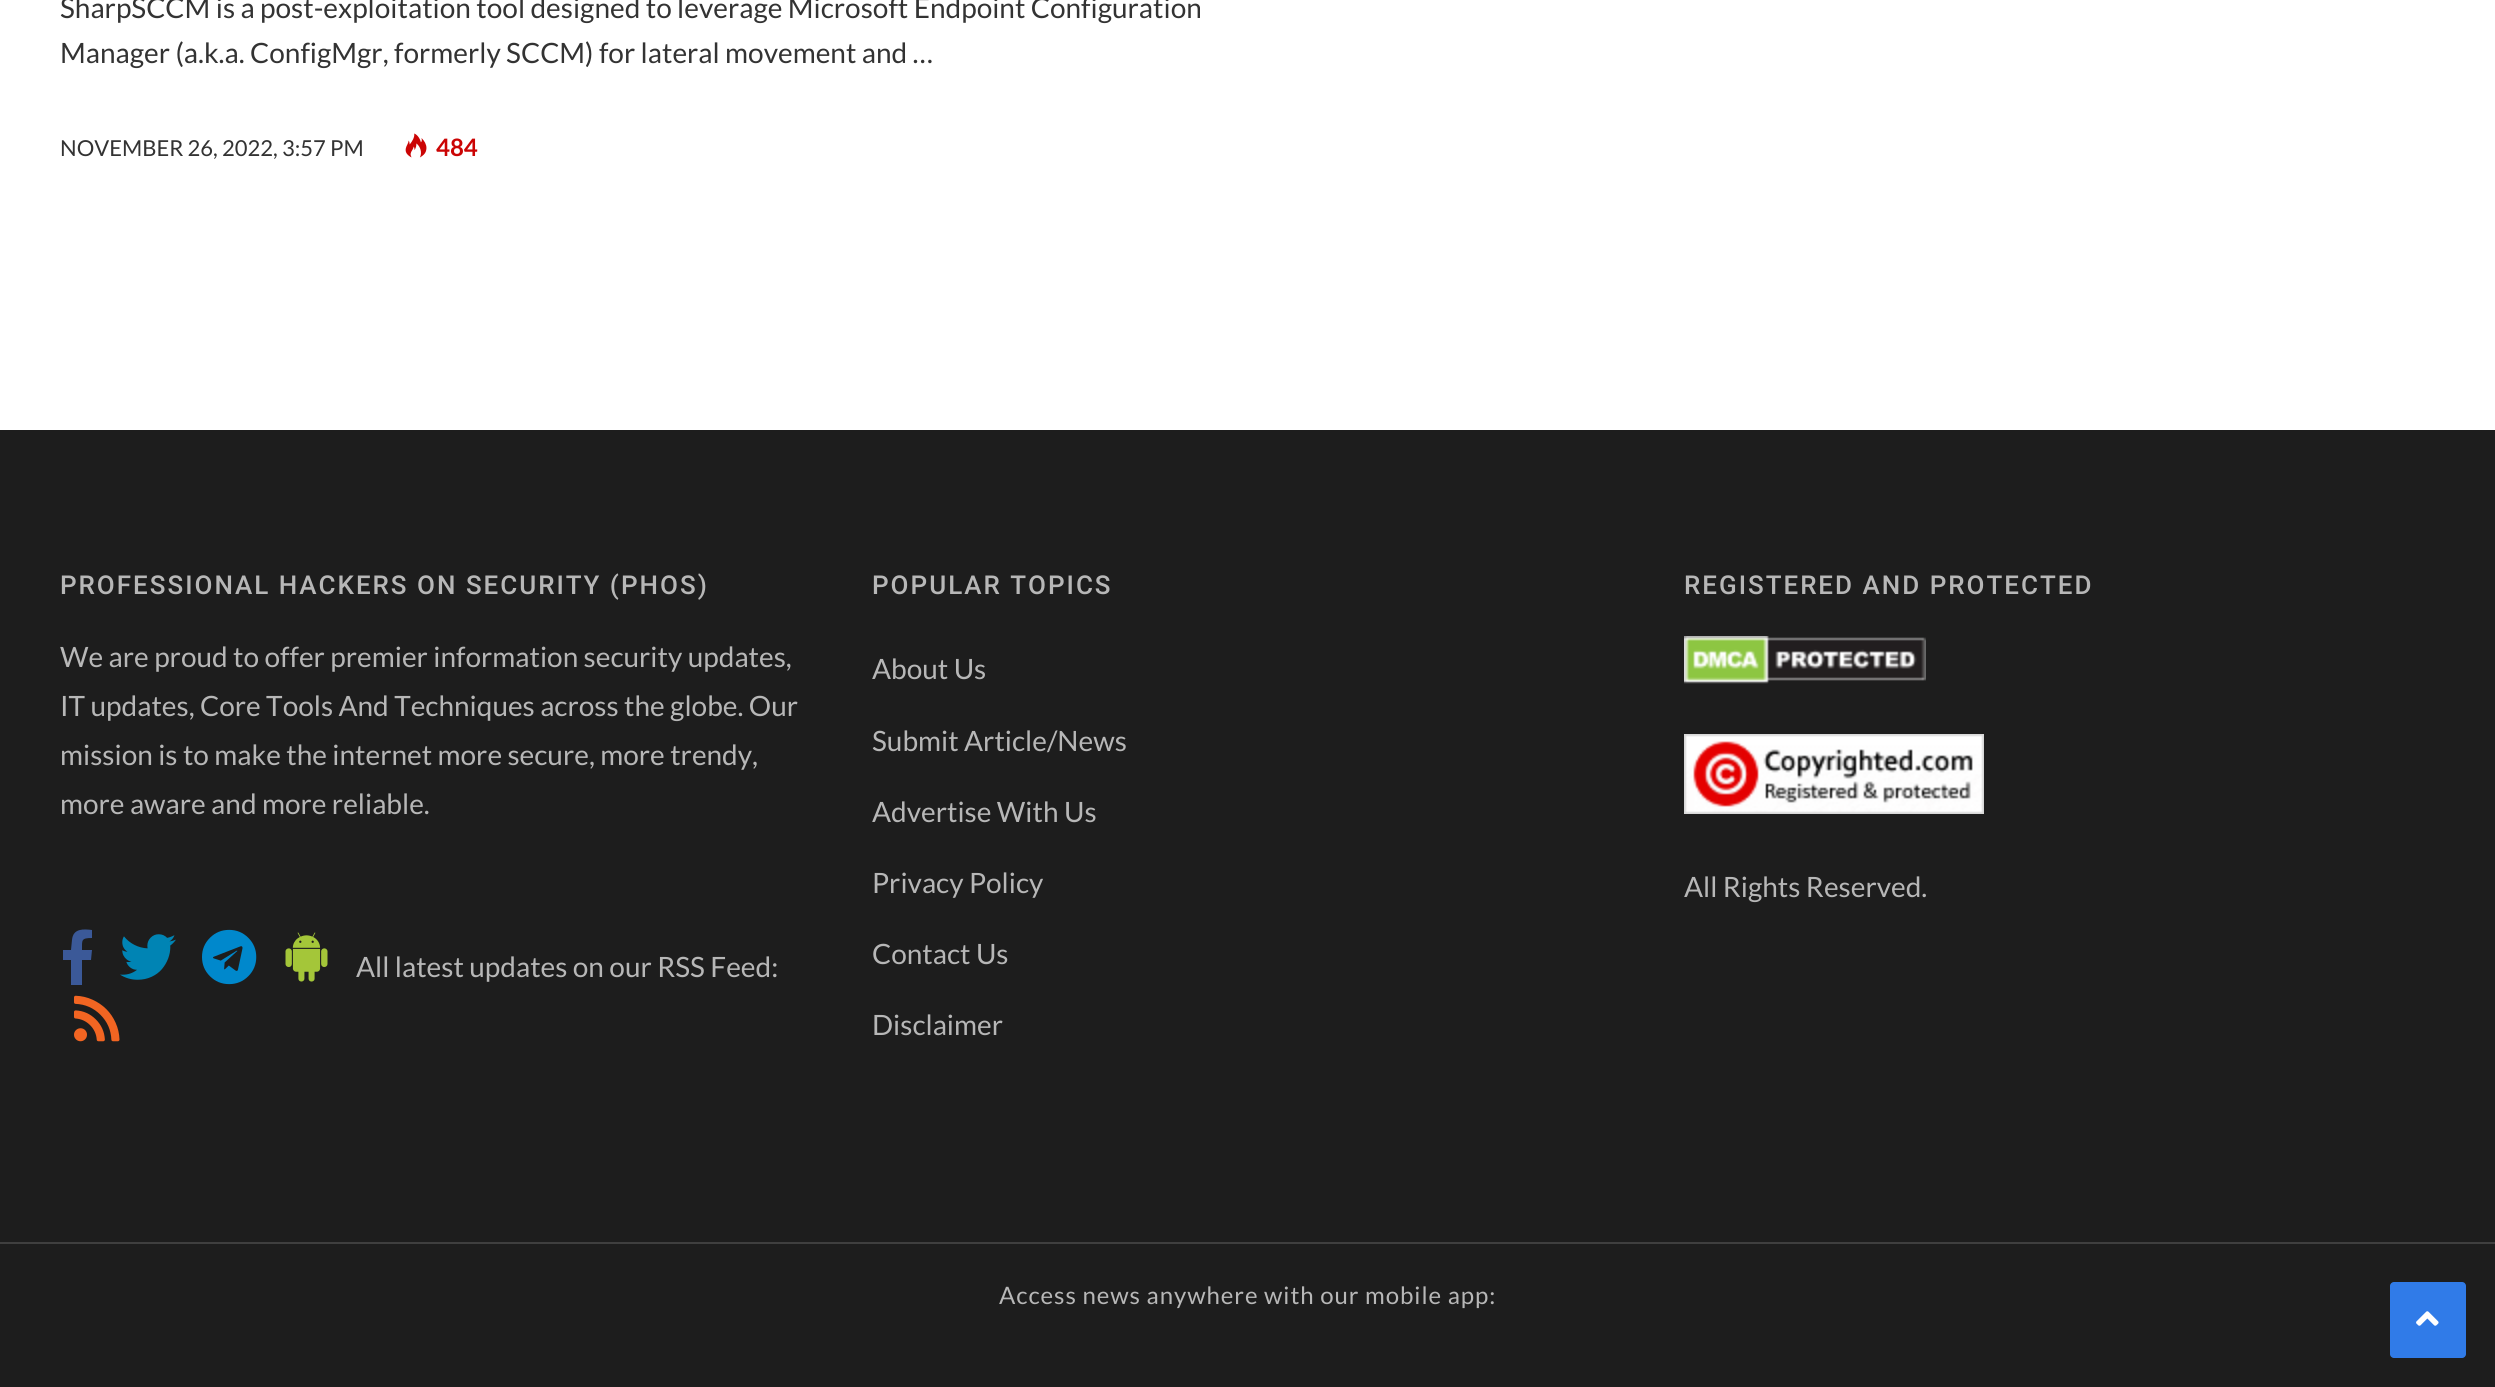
#include <cairo/cairo.h>
#include <math.h>
#include <stddef.h>

typedef struct { double x, y; const char *s; } line_t;
static cairo_t *cr;

static void rgb(unsigned color)
{
	cairo_set_source_rgb(cr, (color >> 16) / 255.0, (color >> 8 & 255) / 255.0, (color & 255) / 255.0);
}

static void tracked(double x, double y, const char *s, double letter, double word)
{
	cairo_move_to(cr, x, y);
	while (*s) {
		char ch[5] = {0};
		int n = 0;
		do ch[n++] = *s++; while ((*s & 0xC0) == 0x80);
		cairo_show_text(cr, ch);
		cairo_rel_move_to(cr, letter + word * (*ch == ' '), 0);
	}
}

static void rrect(double x, double y, double w, double h, double r)
{
	cairo_new_sub_path(cr);
	cairo_arc(cr, x + w - r, y + h - r, r, 0, M_PI / 2);
	cairo_arc(cr, x + r, y + h - r, r, M_PI / 2, M_PI);
	cairo_arc(cr, x + r, y + r, r, M_PI, 1.5 * M_PI);
	cairo_arc(cr, x + w - r, y + r, r, 1.5 * M_PI, 2 * M_PI);
	cairo_close_path(cr);
}

static void image(const char *path, double x, double y, double w, double h)
{
	cairo_surface_t *image = cairo_image_surface_create_from_png(path);
	cairo_save(cr);
	cairo_set_source_surface(cr, image, x, y);
	cairo_rectangle(cr, x, y, w, h);
	cairo_fill(cr);
	cairo_restore(cr);
	cairo_surface_destroy(image);
}

int main(void) {
	cairo_surface_t *surface = cairo_image_surface_create(CAIRO_FORMAT_RGB24, 2495, 1387);
	cr = cairo_create(surface);
	cairo_font_options_t *options = cairo_font_options_create();
	cairo_font_options_set_hint_metrics(options, CAIRO_HINT_METRICS_OFF);
	cairo_font_options_set_hint_style(options, CAIRO_HINT_STYLE_NONE);
	cairo_set_font_options(cr, options);
	cairo_set_miter_limit(cr, 4);
	rgb(0xffffff);
	cairo_paint(cr);
	image("img/1.png", 405, 133, 22, 25);
	rgb(0x1d1d1d);
	cairo_rectangle(cr, 0, 430, 2495, 812);
	cairo_fill(cr);
	rgb(0x3b5998);
	cairo_new_path(cr);
	cairo_move_to(cr, 91, 960);
	cairo_line_to(cr, 82, 960);
	cairo_line_to(cr, 82, 985);
	cairo_line_to(cr, 71, 985);
	cairo_line_to(cr, 71, 960);
	cairo_line_to(cr, 63, 960);
	cairo_line_to(cr, 63, 950);
	cairo_line_to(cr, 71, 950);
	cairo_line_to(cr, 72, 940);
	cairo_curve_to(cr, 73, 928, 84, 929, 92, 930);
	cairo_line_to(cr, 92, 938);
	cairo_curve_to(cr, 81, 938, 82, 940, 82, 950);
	cairo_line_to(cr, 92, 950);
	cairo_close_path(cr);
	cairo_fill(cr);
	image("img/2.png", 120, 934, 56, 46);
	image("img/3.png", 202, 929, 55, 56);
	image("img/4.png", 285, 932, 43, 50);
	image("img/5.png", 74, 995, 46, 47);
	image("img/6.png", 1684, 636, 242, 48);
	image("img/7.png", 1684, 734, 300, 80);
	rgb(0x1d1d1d);
	cairo_rectangle(cr, 0, 1244, 2495, 143);
	cairo_fill(cr);
	rgb(0x3f3f3f);
	cairo_rectangle(cr, 0, 1242, 2495, 2);
	cairo_fill(cr);
	rgb(0x307be8);
	rrect(2390, 1282, 76, 76, 4);
	cairo_fill(cr);
	image("img/8.png", 2416, 1311, 23, 15);
	cairo_select_font_face(cr, "Lato", CAIRO_FONT_SLANT_NORMAL, CAIRO_FONT_WEIGHT_NORMAL);
	cairo_set_font_size(cr, 28);
	rgb(0x333333);
	cairo_move_to(cr, 60, 18);
	cairo_show_text(cr, "SharpSCCM is a post-exploitation tool designed to leverage Microsoft Endpoint Configuration");
	cairo_move_to(cr, 60, 63);
	cairo_show_text(cr, "Manager (a.k.a. ConfigMgr, formerly SCCM) for lateral movement and …");
	cairo_set_font_size(cr, 22);
	cairo_move_to(cr, 60, 156);
	cairo_show_text(cr, "NOVEMBER 26, 2022, 3:57 PM");
	cairo_select_font_face(cr, "Lato", CAIRO_FONT_SLANT_NORMAL, CAIRO_FONT_WEIGHT_BOLD);
	cairo_set_font_size(cr, 24);
	rgb(0xcb0404);
	cairo_move_to(cr, 436, 156);
	cairo_show_text(cr, "484");
	cairo_select_font_face(cr, "Roboto Medium", CAIRO_FONT_SLANT_NORMAL, CAIRO_FONT_WEIGHT_NORMAL);
	cairo_set_font_size(cr, 26);
	rgb(0xb7b7b7);
	tracked(60, 594, "PROFESSIONAL HACKERS ON SECURITY (PHOS)", 2, 0);
	cairo_select_font_face(cr, "Lato", CAIRO_FONT_SLANT_NORMAL, CAIRO_FONT_WEIGHT_NORMAL);
	cairo_set_font_size(cr, 28);
	{
		static const line_t items[] = {
			{60, 667, "We are proud to offer premier information security updates,"},
			{60, 716, "IT updates, Core Tools And Techniques across the globe. Our"},
			{60, 765, "mission is to make the internet more secure, more trendy,"},
			{60, 814, "more aware and more reliable."},
			{356, 977, "All latest updates on our RSS Feed:"},
		};
		for (size_t i = 0; i < sizeof items / sizeof *items; i++) {
			cairo_move_to(cr, items[i].x, items[i].y);
			cairo_show_text(cr, items[i].s);
		}
	}
	cairo_select_font_face(cr, "Roboto Medium", CAIRO_FONT_SLANT_NORMAL, CAIRO_FONT_WEIGHT_NORMAL);
	cairo_set_font_size(cr, 26);
	tracked(872, 594, "POPULAR TOPICS", 2, 0);
	cairo_select_font_face(cr, "Lato", CAIRO_FONT_SLANT_NORMAL, CAIRO_FONT_WEIGHT_NORMAL);
	cairo_set_font_size(cr, 28);
	{
		static const line_t items[] = {
			{872, 679, "About Us"},
			{872, 751, "Submit Article/News"},
			{872, 822, "Advertise With Us"},
			{872, 893, "Privacy Policy"},
			{872, 964, "Contact Us"},
			{872, 1035, "Disclaimer"},
		};
		for (size_t i = 0; i < sizeof items / sizeof *items; i++) {
			cairo_move_to(cr, items[i].x, items[i].y);
			cairo_show_text(cr, items[i].s);
		}
	}
	cairo_select_font_face(cr, "Roboto Medium", CAIRO_FONT_SLANT_NORMAL, CAIRO_FONT_WEIGHT_NORMAL);
	cairo_set_font_size(cr, 26);
	tracked(1684, 594, "REGISTERED AND PROTECTED", 2, 0);
	cairo_select_font_face(cr, "Lato", CAIRO_FONT_SLANT_NORMAL, CAIRO_FONT_WEIGHT_NORMAL);
	cairo_set_font_size(cr, 28);
	cairo_move_to(cr, 1684, 897);
	cairo_show_text(cr, "All Rights Reserved.");
	cairo_set_font_size(cr, 24);
	tracked(999, 1304, "Access news anywhere with our mobile app:", 0.95, 0);
	cairo_surface_write_to_png(surface, "page.png");
	cairo_font_options_destroy(options);
	cairo_destroy(cr);
	cairo_surface_destroy(surface);
	return 0;
}
